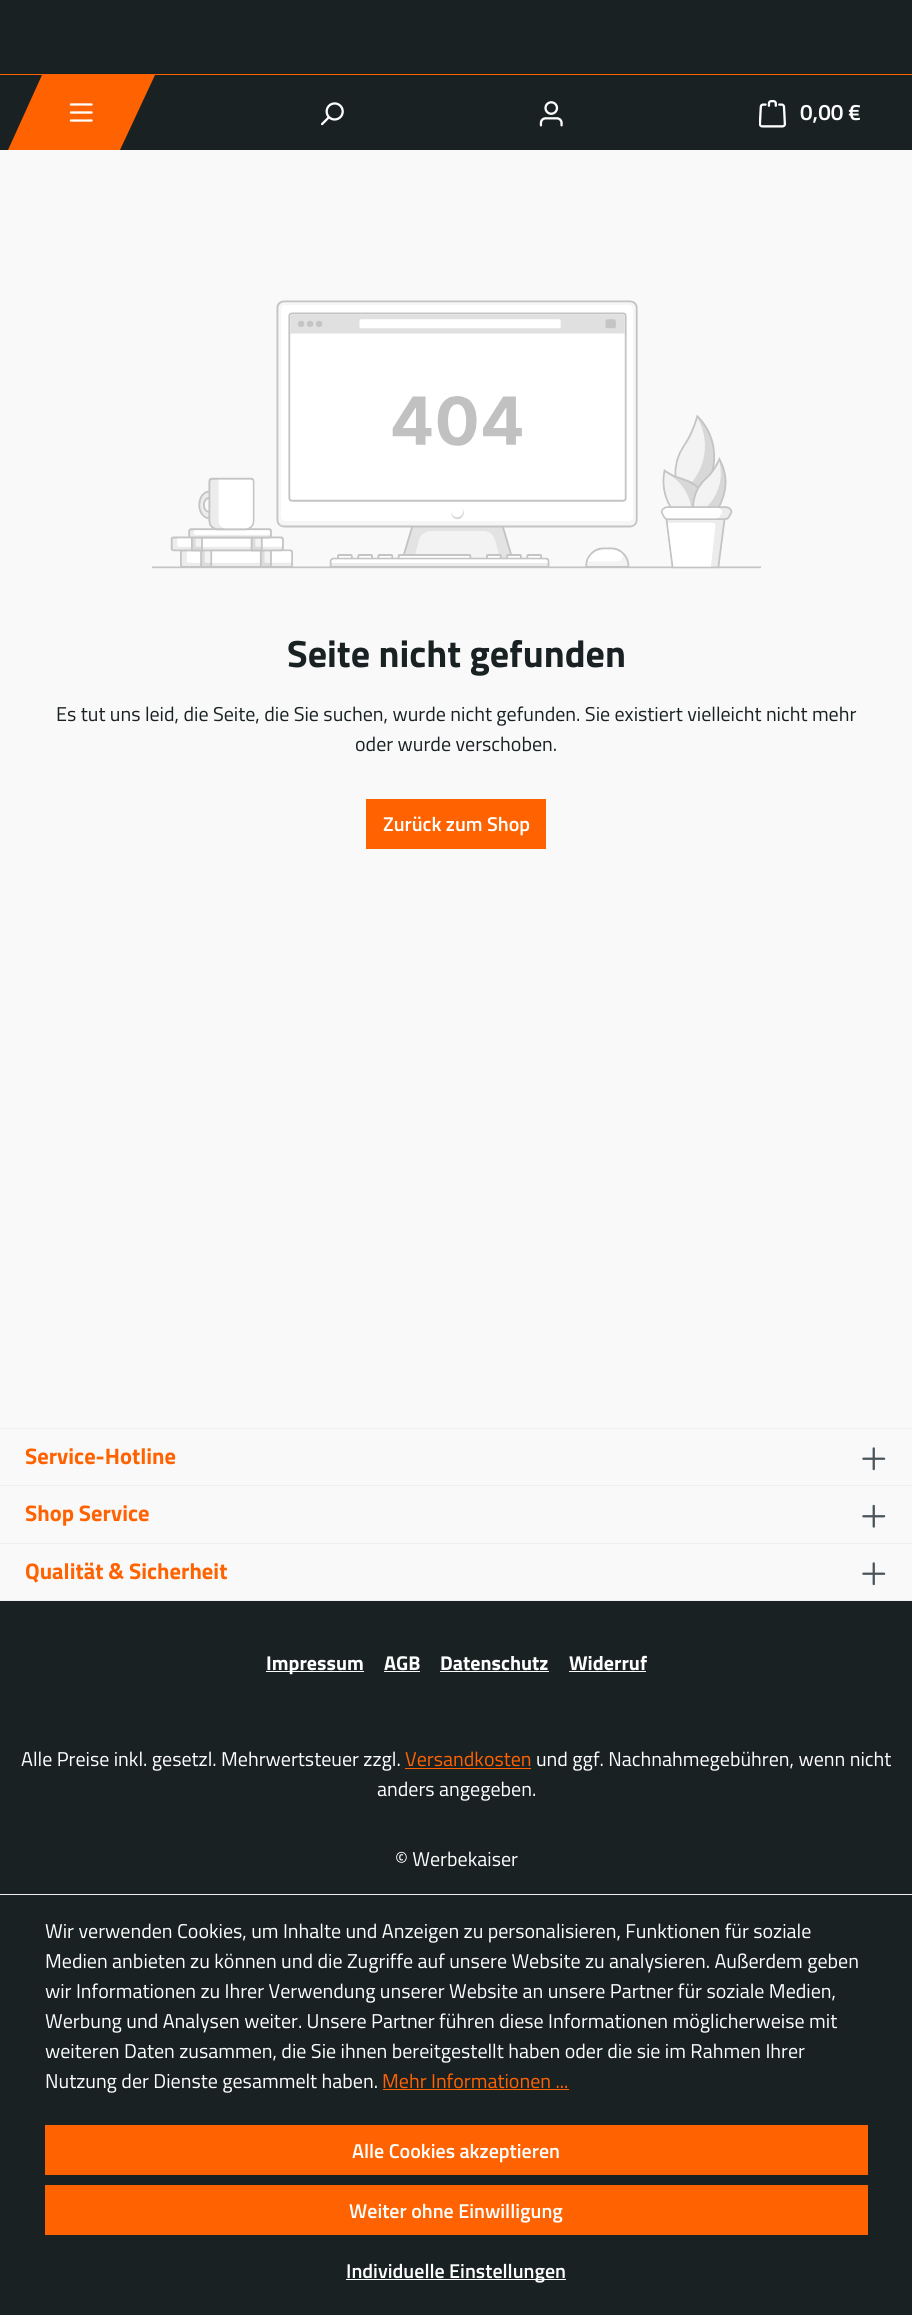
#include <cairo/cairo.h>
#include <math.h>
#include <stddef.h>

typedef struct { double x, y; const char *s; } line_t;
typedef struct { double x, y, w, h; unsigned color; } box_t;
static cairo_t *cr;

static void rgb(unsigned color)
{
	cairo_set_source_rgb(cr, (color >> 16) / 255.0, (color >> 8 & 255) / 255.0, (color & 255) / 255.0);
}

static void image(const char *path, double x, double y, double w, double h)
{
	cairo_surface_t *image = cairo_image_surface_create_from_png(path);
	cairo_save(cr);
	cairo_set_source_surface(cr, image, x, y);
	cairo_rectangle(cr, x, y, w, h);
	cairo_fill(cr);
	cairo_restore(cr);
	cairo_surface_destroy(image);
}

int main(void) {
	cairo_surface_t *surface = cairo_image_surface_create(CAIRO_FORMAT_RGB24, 912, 2315);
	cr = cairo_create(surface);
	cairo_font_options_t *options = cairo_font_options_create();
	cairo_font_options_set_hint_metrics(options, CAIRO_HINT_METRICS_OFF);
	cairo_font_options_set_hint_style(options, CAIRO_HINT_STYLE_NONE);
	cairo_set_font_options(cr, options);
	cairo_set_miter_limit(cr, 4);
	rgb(0xf9f9f9);
	cairo_paint(cr);
	rgb(0x192123);
	cairo_rectangle(cr, 0, 0, 912, 150);
	cairo_fill(cr);
	rgb(0xff6200);
	cairo_rectangle(cr, 0, 74, 912, 1);
	cairo_fill(cr);
	cairo_new_path(cr);
	cairo_move_to(cr, 42, 75);
	cairo_line_to(cr, 155, 75);
	cairo_line_to(cr, 120, 150);
	cairo_line_to(cr, 8, 150);
	cairo_close_path(cr);
	cairo_fill(cr);
	image("img/1.png", 69, 103, 24, 19);
	image("img/2.png", 321, 102, 23, 24);
	image("img/3.png", 539, 101, 24, 26);
	image("img/4.png", 759, 100, 27, 28);
	image("img/5.png", 152, 300, 609, 269);
	{
		static const box_t items[] = {
			{366, 799, 180, 50, 0xff6200},
			{0, 1428, 912, 1, 0xefefef},
			{0, 1485, 912, 1, 0xefefef},
		};
		for (size_t i = 0; i < sizeof items / sizeof *items; i++) {
			rgb(items[i].color);
			cairo_rectangle(cr, items[i].x, items[i].y, items[i].w, items[i].h);
			cairo_fill(cr);
		}
	}
	image("img/6.png", 862, 1447, 24, 24);
	cairo_rectangle(cr, 0, 1543, 912, 1);
	cairo_fill(cr);
	image("img/7.png", 862, 1504, 24, 24);
	cairo_rectangle(cr, 0, 1600, 912, 1);
	cairo_fill(cr);
	image("img/6.png", 862, 1562, 24, 24);
	{
		static const box_t items[] = {
			{0, 1601, 912, 293, 0x192123},
			{266, 1671, 98, 1, 0xffffff},
			{384, 1671, 36, 1, 0xffffff},
			{440, 1671, 109, 1, 0xffffff},
			{569, 1671, 77, 1, 0xffffff},
			{405, 1768, 126, 1, 0xff6200},
			{0, 1895, 912, 420, 0x192123},
			{0, 1894, 912, 1, 0xefefef},
			{383, 2089, 186, 1, 0xff6200},
			{45, 2125, 823, 50, 0xff6200},
			{45, 2185, 823, 50, 0xff6200},
			{346, 2279, 220, 1, 0xffffff},
		};
		for (size_t i = 0; i < sizeof items / sizeof *items; i++) {
			rgb(items[i].color);
			cairo_rectangle(cr, items[i].x, items[i].y, items[i].w, items[i].h);
			cairo_fill(cr);
		}
	}
	cairo_select_font_face(cr, "Titillium Web SemiBold", CAIRO_FONT_SLANT_NORMAL, CAIRO_FONT_WEIGHT_NORMAL);
	cairo_set_font_size(cr, 22.5);
	cairo_move_to(cr, 800, 120);
	cairo_show_text(cr, "0,00 €");
	cairo_select_font_face(cr, "Titillium Web", CAIRO_FONT_SLANT_NORMAL, CAIRO_FONT_WEIGHT_BOLD);
	cairo_set_font_size(cr, 38);
	rgb(0x192123);
	cairo_move_to(cr, 287, 667);
	cairo_show_text(cr, "Seite nicht gefunden");
	cairo_select_font_face(cr, "Titillium Web", CAIRO_FONT_SLANT_NORMAL, CAIRO_FONT_WEIGHT_NORMAL);
	cairo_set_font_size(cr, 20);
	cairo_move_to(cr, 56, 721);
	cairo_show_text(cr, "Es tut uns leid, die Seite, die Sie suchen, wurde nicht gefunden. Sie existiert vielleicht nicht mehr");
	cairo_move_to(cr, 355, 751);
	cairo_show_text(cr, "oder wurde verschoben.");
	cairo_select_font_face(cr, "Titillium Web SemiBold", CAIRO_FONT_SLANT_NORMAL, CAIRO_FONT_WEIGHT_NORMAL);
	rgb(0xffffff);
	cairo_move_to(cr, 383, 831);
	cairo_show_text(cr, "Zurück zum Shop");
	cairo_select_font_face(cr, "Titillium Web", CAIRO_FONT_SLANT_NORMAL, CAIRO_FONT_WEIGHT_BOLD);
	cairo_set_font_size(cr, 22.5);
	rgb(0xff6200);
	{
		static const line_t items[] = {
			{25, 1464, "Service-Hotline"},
			{25, 1521, "Shop Service"},
			{25, 1579, "Qualität & Sicherheit"},
		};
		for (size_t i = 0; i < sizeof items / sizeof *items; i++) {
			cairo_move_to(cr, items[i].x, items[i].y);
			cairo_show_text(cr, items[i].s);
		}
	}
	cairo_set_font_size(cr, 20);
	rgb(0xffffff);
	{
		static const line_t items[] = {
			{266, 1670, "Impressum"},
			{384, 1670, "AGB"},
			{440, 1670, "Datenschutz"},
			{569, 1670, "Widerruf"},
		};
		for (size_t i = 0; i < sizeof items / sizeof *items; i++) {
			cairo_move_to(cr, items[i].x, items[i].y);
			cairo_show_text(cr, items[i].s);
		}
	}
	cairo_select_font_face(cr, "Titillium Web", CAIRO_FONT_SLANT_NORMAL, CAIRO_FONT_WEIGHT_NORMAL);
	cairo_move_to(cr, 21, 1766);
	cairo_show_text(cr, "Alle Preise inkl. gesetzl. Mehrwertsteuer zzgl.");
	rgb(0xff6200);
	cairo_move_to(cr, 405, 1766);
	cairo_show_text(cr, "Versandkosten");
	rgb(0xffffff);
	{
		static const line_t items[] = {
			{536, 1766, "und ggf. Nachnahmegebühren, wenn nicht"},
			{377, 1796, "anders angegeben."},
			{395, 1866, "© Werbekaiser"},
			{45, 1938, "Wir verwenden Cookies, um Inhalte und Anzeigen zu personalisieren, Funktionen für soziale"},
			{45, 1968, "Medien anbieten zu können und die Zugriffe auf unsere Website zu analysieren. Außerdem geben"},
			{45, 1998, "wir Informationen zu Ihrer Verwendung unserer Website an unsere Partner für soziale Medien,"},
			{45, 2028, "Werbung und Analysen weiter. Unsere Partner führen diese Informationen möglicherweise mit"},
			{45, 2058, "weiteren Daten zusammen, die Sie ihnen bereitgestellt haben oder die sie im Rahmen Ihrer"},
			{45, 2088, "Nutzung der Dienste gesammelt haben."},
		};
		for (size_t i = 0; i < sizeof items / sizeof *items; i++) {
			cairo_move_to(cr, items[i].x, items[i].y);
			cairo_show_text(cr, items[i].s);
		}
	}
	rgb(0xff6200);
	cairo_move_to(cr, 382, 2088);
	cairo_show_text(cr, "Mehr Informationen ...");
	cairo_select_font_face(cr, "Titillium Web SemiBold", CAIRO_FONT_SLANT_NORMAL, CAIRO_FONT_WEIGHT_NORMAL);
	rgb(0xffffff);
	{
		static const line_t items[] = {
			{352, 2158, "Alle Cookies akzeptieren"},
			{349, 2218, "Weiter ohne Einwilligung"},
			{346, 2278, "Individuelle Einstellungen"},
		};
		for (size_t i = 0; i < sizeof items / sizeof *items; i++) {
			cairo_move_to(cr, items[i].x, items[i].y);
			cairo_show_text(cr, items[i].s);
		}
	}
	cairo_surface_write_to_png(surface, "page.png");
	cairo_font_options_destroy(options);
	cairo_destroy(cr);
	cairo_surface_destroy(surface);
	return 0;
}
